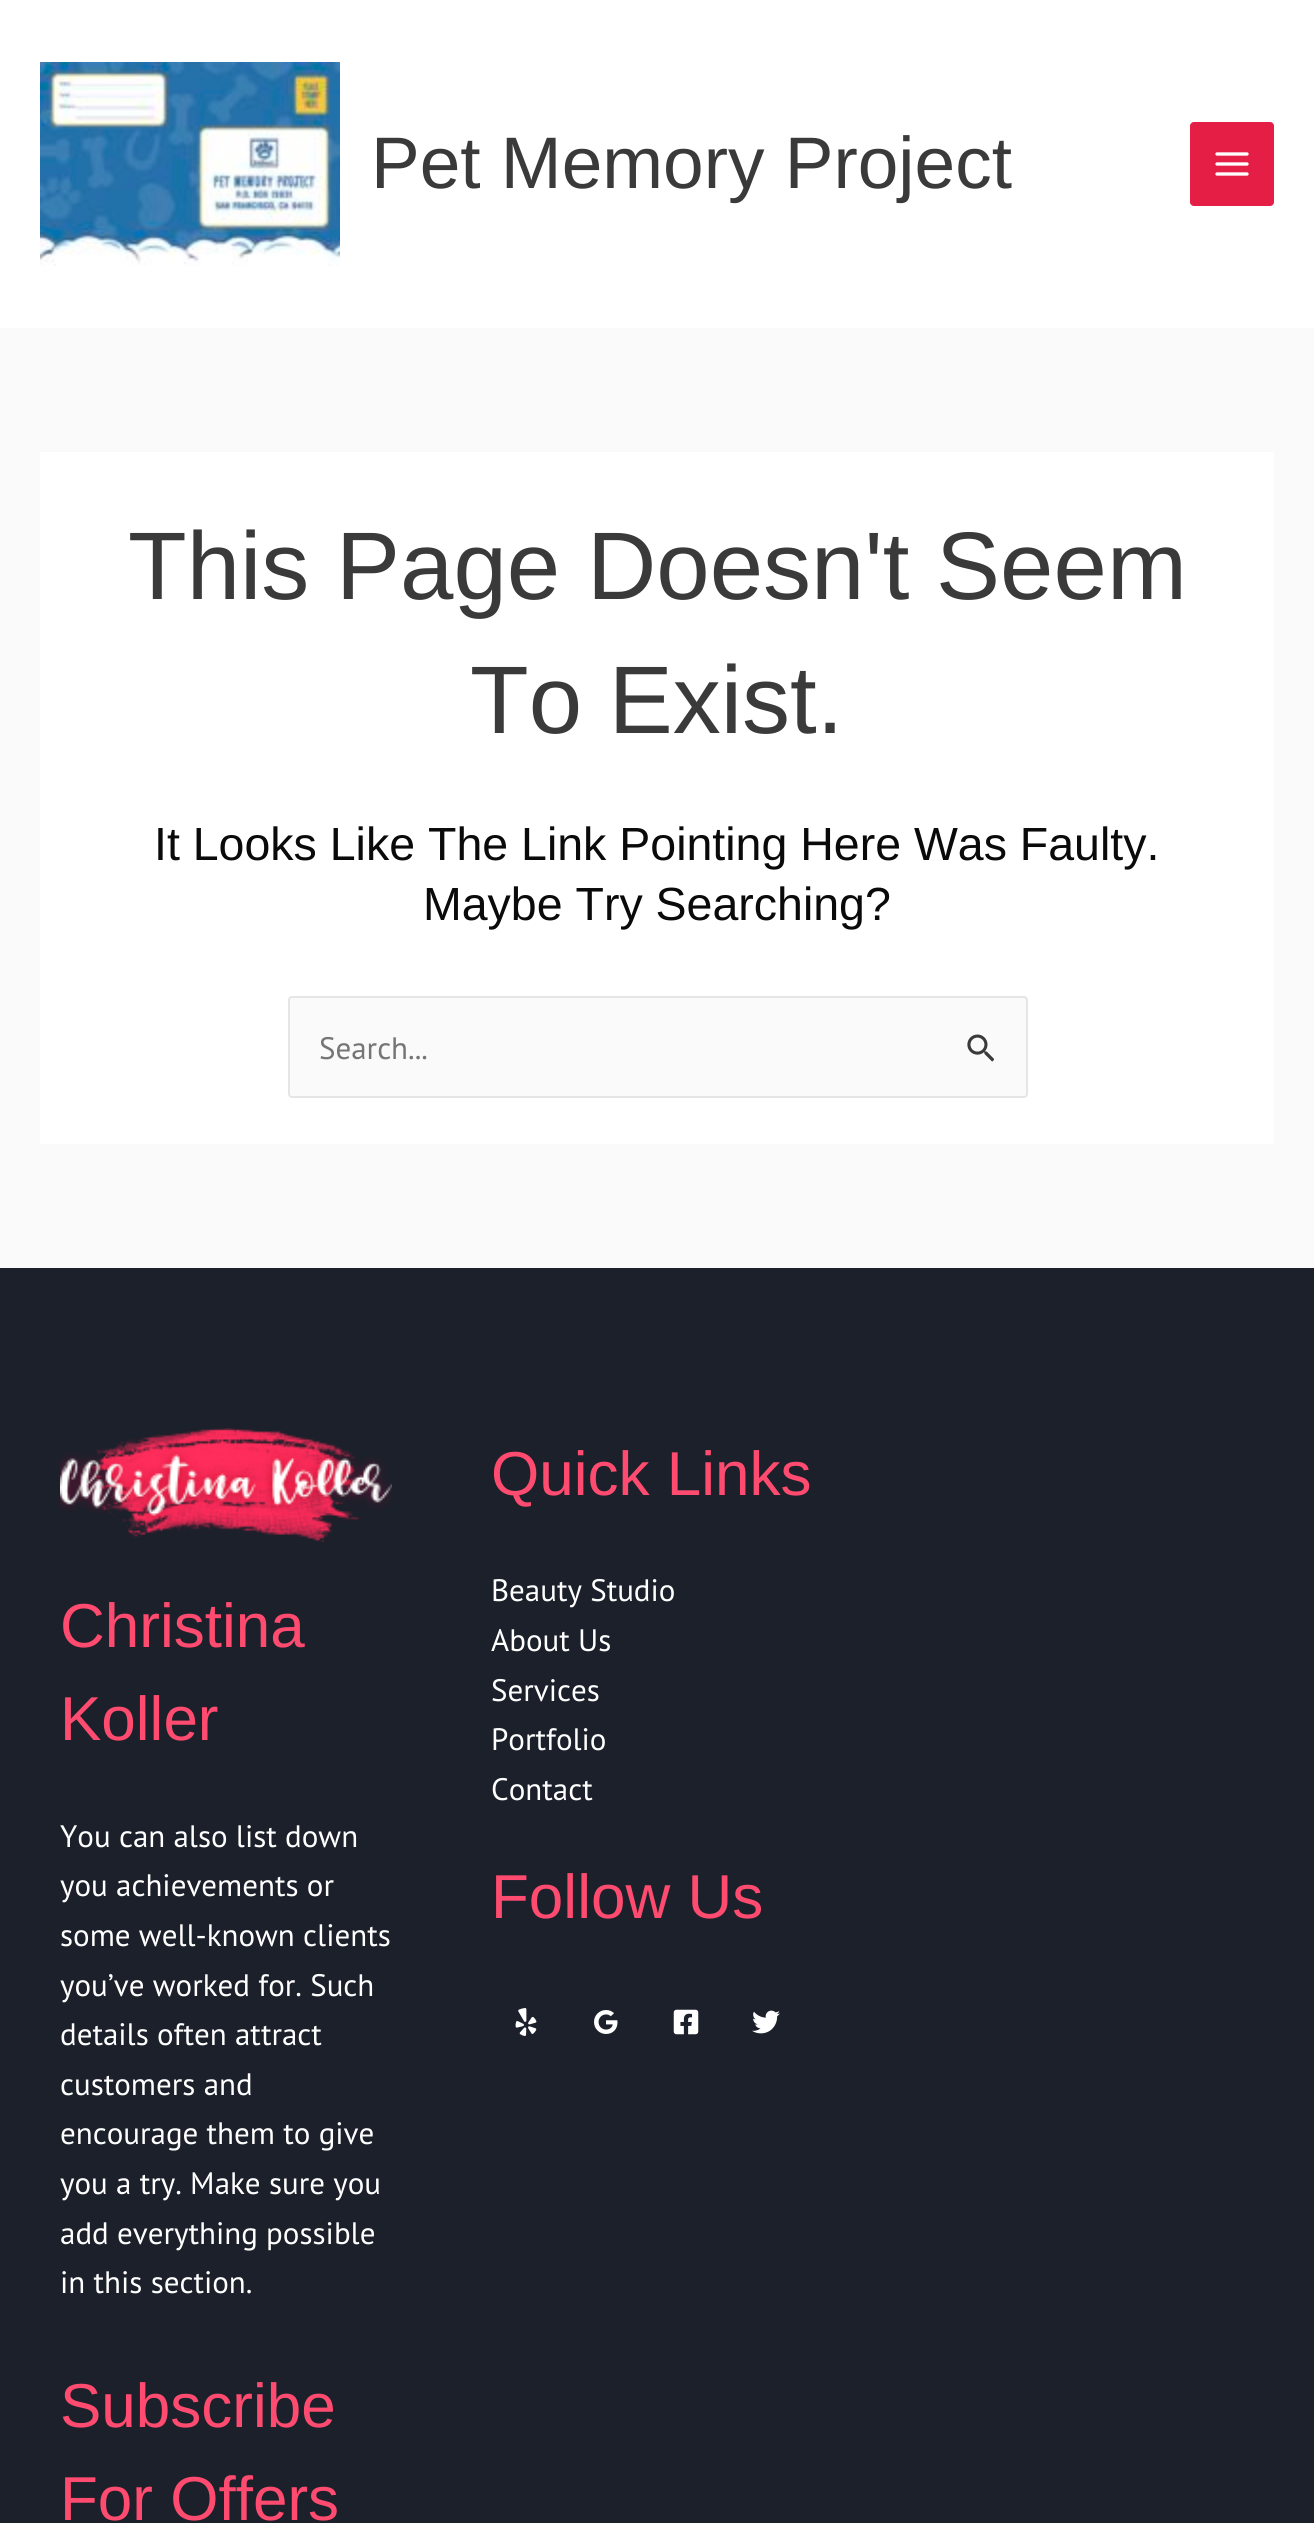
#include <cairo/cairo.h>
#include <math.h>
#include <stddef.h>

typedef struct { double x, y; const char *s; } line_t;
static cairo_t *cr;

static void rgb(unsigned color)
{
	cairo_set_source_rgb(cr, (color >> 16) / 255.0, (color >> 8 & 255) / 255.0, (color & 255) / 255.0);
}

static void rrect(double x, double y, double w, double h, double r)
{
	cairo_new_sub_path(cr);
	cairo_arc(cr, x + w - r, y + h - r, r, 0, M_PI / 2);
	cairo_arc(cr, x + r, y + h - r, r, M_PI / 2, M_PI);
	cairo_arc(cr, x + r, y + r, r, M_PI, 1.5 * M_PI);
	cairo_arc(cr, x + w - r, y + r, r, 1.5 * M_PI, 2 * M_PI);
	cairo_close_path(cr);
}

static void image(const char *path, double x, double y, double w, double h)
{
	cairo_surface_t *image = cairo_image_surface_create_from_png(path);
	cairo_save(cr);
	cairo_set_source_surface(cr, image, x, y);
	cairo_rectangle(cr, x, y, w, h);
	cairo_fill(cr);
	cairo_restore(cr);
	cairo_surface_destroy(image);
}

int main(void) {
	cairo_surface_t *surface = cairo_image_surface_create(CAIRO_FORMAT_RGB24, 1314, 2523);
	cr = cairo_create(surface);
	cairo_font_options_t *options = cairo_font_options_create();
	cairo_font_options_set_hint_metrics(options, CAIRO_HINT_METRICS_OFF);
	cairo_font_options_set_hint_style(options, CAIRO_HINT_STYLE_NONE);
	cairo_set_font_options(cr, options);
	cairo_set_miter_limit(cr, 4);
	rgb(0xfafafa);
	cairo_paint(cr);
	rgb(0xffffff);
	cairo_rectangle(cr, 0, 0, 1314, 328);
	cairo_fill(cr);
	image("img/1.png", 40, 62, 300, 204);
	rgb(0xe41e45);
	rrect(1190, 122, 84, 84, 4);
	cairo_fill(cr);
	image("img/2.png", 1215, 152, 34, 24);
	rgb(0xffffff);
	cairo_rectangle(cr, 40, 452, 1234, 692);
	cairo_fill(cr);
	rgb(0xfafafa);
	rrect(289, 997, 738, 100, 3);
	cairo_fill_preserve(cr);
	rgb(0xe5e5e5);
	cairo_stroke(cr);
	image("img/3.png", 967, 1034, 27, 28);
	rgb(0x1b202a);
	cairo_rectangle(cr, 0, 1268, 1314, 1255);
	cairo_fill(cr);
	image("img/4.png", 60, 1428, 332, 114);
	image("img/5.png", 515, 2008, 22, 28);
	image("img/6.png", 594, 2010, 24, 24);
	image("img/7.png", 673, 2009, 26, 26);
	image("img/8.png", 752, 2010, 28, 24);
	cairo_select_font_face(cr, "Liberation Sans", CAIRO_FONT_SLANT_NORMAL, CAIRO_FONT_WEIGHT_NORMAL);
	cairo_set_font_size(cr, 73);
	rgb(0x3a3a3a);
	cairo_move_to(cr, 371, 188);
	cairo_show_text(cr, "Pet Memory Project");
	cairo_set_font_size(cr, 96);
	cairo_move_to(cr, 128, 599);
	cairo_show_text(cr, "This Page Doesn't Seem");
	cairo_move_to(cr, 470, 733);
	cairo_show_text(cr, "To Exist.");
	cairo_set_font_size(cr, 46.5);
	rgb(0x0a0a0a);
	cairo_move_to(cr, 154, 860);
	cairo_show_text(cr, "It Looks Like The Link Pointing Here Was Faulty.");
	cairo_move_to(cr, 423, 920);
	cairo_show_text(cr, "Maybe Try Searching?");
	cairo_select_font_face(cr, "PT Sans", CAIRO_FONT_SLANT_NORMAL, CAIRO_FONT_WEIGHT_NORMAL);
	cairo_set_font_size(cr, 31);
	rgb(0x757575);
	cairo_move_to(cr, 319, 1059);
	cairo_show_text(cr, "Search...");
	cairo_select_font_face(cr, "Liberation Sans", CAIRO_FONT_SLANT_NORMAL, CAIRO_FONT_WEIGHT_NORMAL);
	cairo_set_font_size(cr, 62);
	rgb(0xff4b6f);
	cairo_move_to(cr, 60, 1647);
	cairo_show_text(cr, "Christina");
	cairo_move_to(cr, 60, 1740);
	cairo_show_text(cr, "Koller");
	cairo_select_font_face(cr, "PT Sans", CAIRO_FONT_SLANT_NORMAL, CAIRO_FONT_WEIGHT_NORMAL);
	cairo_set_font_size(cr, 31);
	rgb(0xffffff);
	{
		static const line_t items[] = {
			{60, 1847, "You can also list down"},
			{60, 1896, "you achievements or"},
			{60, 1946, "some well-known clients"},
			{60, 1996, "you’ve worked for. Such"},
			{60, 2045, "details often attract"},
			{60, 2095, "customers and"},
			{60, 2144, "encourage them to give"},
			{60, 2194, "you a try. Make sure you"},
			{60, 2244, "add everything possible"},
			{60, 2293, "in this section."},
		};
		for (size_t i = 0; i < sizeof items / sizeof *items; i++) {
			cairo_move_to(cr, items[i].x, items[i].y);
			cairo_show_text(cr, items[i].s);
		}
	}
	cairo_select_font_face(cr, "Liberation Sans", CAIRO_FONT_SLANT_NORMAL, CAIRO_FONT_WEIGHT_NORMAL);
	cairo_set_font_size(cr, 62);
	rgb(0xff4b6f);
	{
		static const line_t items[] = {
			{60, 2427, "Subscribe"},
			{60, 2520, "For Offers"},
			{491, 1495, "Quick Links"},
		};
		for (size_t i = 0; i < sizeof items / sizeof *items; i++) {
			cairo_move_to(cr, items[i].x, items[i].y);
			cairo_show_text(cr, items[i].s);
		}
	}
	cairo_select_font_face(cr, "PT Sans", CAIRO_FONT_SLANT_NORMAL, CAIRO_FONT_WEIGHT_NORMAL);
	cairo_set_font_size(cr, 31);
	rgb(0xffffff);
	{
		static const line_t items[] = {
			{491, 1601, "Beauty Studio"},
			{491, 1651, "About Us"},
			{491, 1701, "Services"},
			{491, 1750, "Portfolio"},
			{491, 1800, "Contact"},
		};
		for (size_t i = 0; i < sizeof items / sizeof *items; i++) {
			cairo_move_to(cr, items[i].x, items[i].y);
			cairo_show_text(cr, items[i].s);
		}
	}
	cairo_select_font_face(cr, "Liberation Sans", CAIRO_FONT_SLANT_NORMAL, CAIRO_FONT_WEIGHT_NORMAL);
	cairo_set_font_size(cr, 62);
	rgb(0xff4b6f);
	cairo_move_to(cr, 491, 1918);
	cairo_show_text(cr, "Follow Us");
	cairo_surface_write_to_png(surface, "page.png");
	cairo_font_options_destroy(options);
	cairo_destroy(cr);
	cairo_surface_destroy(surface);
	return 0;
}
